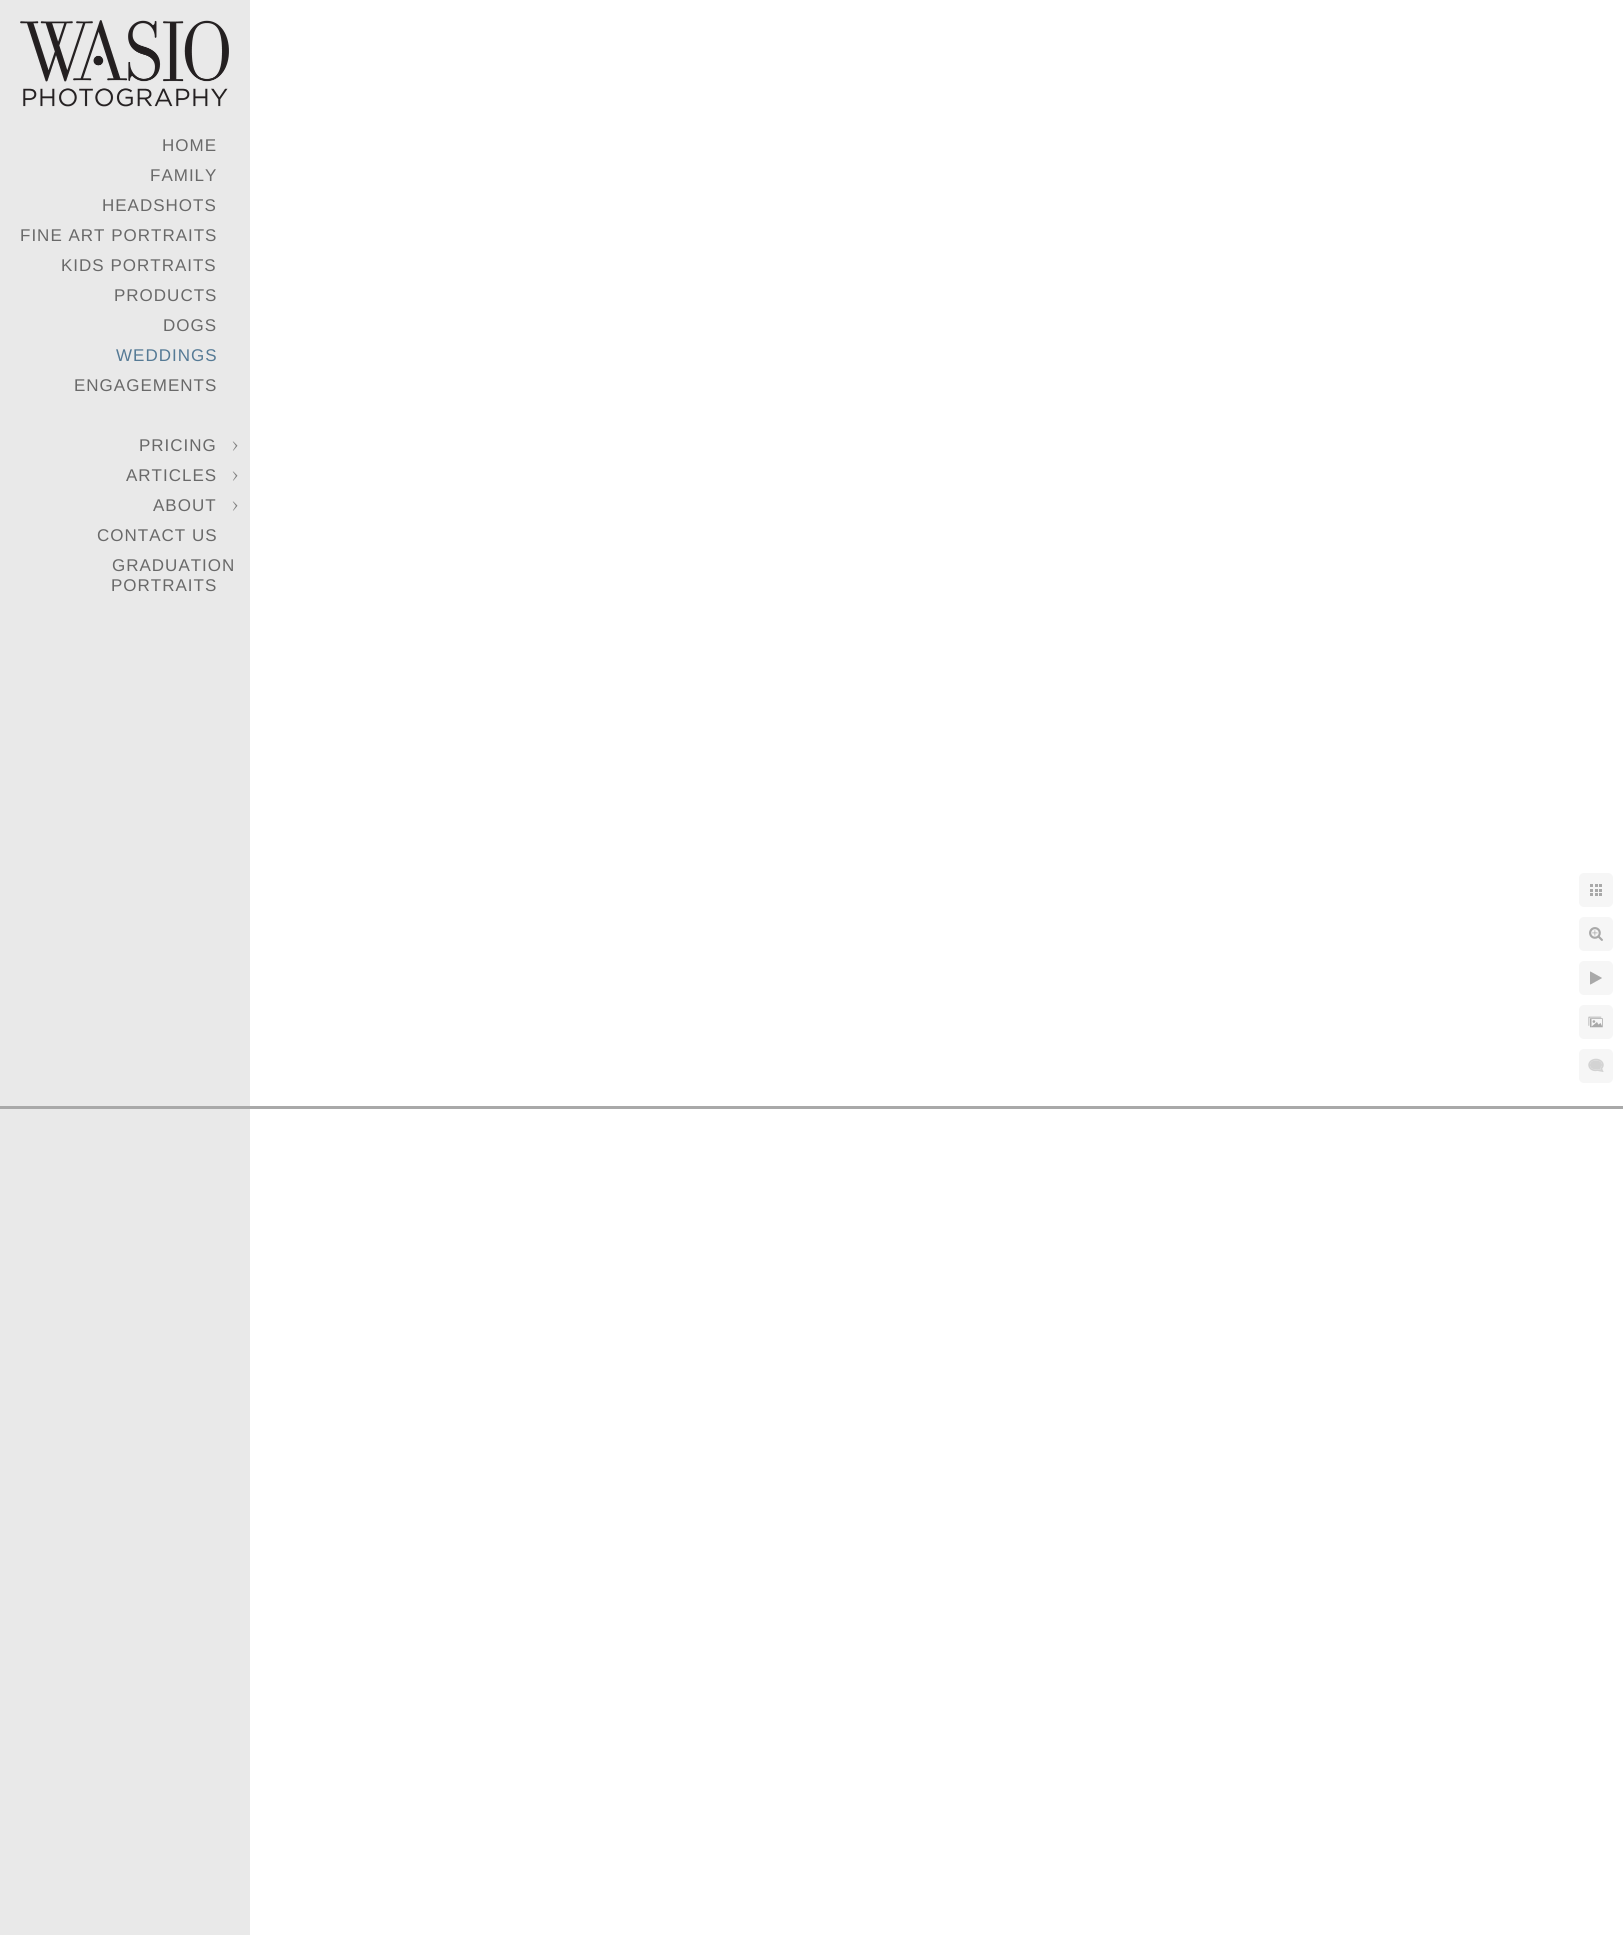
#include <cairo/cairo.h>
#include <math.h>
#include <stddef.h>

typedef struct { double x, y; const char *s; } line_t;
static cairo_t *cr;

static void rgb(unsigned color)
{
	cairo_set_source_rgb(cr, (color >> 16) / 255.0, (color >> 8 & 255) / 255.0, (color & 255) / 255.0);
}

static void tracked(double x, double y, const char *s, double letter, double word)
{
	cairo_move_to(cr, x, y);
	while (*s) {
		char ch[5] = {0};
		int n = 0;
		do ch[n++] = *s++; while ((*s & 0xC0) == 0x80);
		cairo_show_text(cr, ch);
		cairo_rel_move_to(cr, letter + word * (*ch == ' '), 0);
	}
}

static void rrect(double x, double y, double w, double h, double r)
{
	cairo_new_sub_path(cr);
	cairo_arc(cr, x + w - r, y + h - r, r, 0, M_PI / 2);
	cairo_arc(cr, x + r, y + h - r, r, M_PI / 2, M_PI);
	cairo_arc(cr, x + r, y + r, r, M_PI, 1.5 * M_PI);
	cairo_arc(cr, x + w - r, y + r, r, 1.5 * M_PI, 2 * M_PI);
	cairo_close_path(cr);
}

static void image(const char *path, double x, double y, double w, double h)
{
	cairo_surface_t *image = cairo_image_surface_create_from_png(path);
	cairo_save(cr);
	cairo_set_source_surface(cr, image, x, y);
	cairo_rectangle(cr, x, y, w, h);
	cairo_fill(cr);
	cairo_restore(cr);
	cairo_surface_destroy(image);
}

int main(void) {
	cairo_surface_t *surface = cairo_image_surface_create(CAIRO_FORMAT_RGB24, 1623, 1935);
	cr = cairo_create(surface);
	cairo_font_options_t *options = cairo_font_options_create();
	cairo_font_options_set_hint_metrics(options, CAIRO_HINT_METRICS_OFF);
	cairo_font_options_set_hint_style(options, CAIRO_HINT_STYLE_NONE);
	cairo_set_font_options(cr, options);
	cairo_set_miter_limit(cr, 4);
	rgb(0xffffff);
	cairo_paint(cr);
	rgb(0xe9e9e9);
	cairo_rectangle(cr, 0, 0, 250, 1935);
	cairo_fill(cr);
	image("img/1.png", 20, 20, 209, 87);
	image("img/2.png", 232, 441, 6, 10);
	image("img/2.png", 232, 471, 6, 10);
	image("img/2.png", 232, 501, 6, 10);
	rgb(0xf6f6f6);
	rrect(1579, 873, 34, 34, 5);
	cairo_fill(cr);
	image("img/3.png", 1590, 884, 12, 12);
	rrect(1579, 917, 34, 34, 5);
	cairo_fill(cr);
	image("img/4.png", 1589, 927, 14, 14);
	rrect(1579, 961, 34, 34, 5);
	cairo_fill(cr);
	image("img/5.png", 1590, 971, 12, 14);
	rrect(1579, 1005, 34, 34, 5);
	cairo_fill(cr);
	image("img/6.png", 1588, 1016, 15, 12);
	rrect(1579, 1049, 34, 34, 5);
	cairo_fill(cr);
	image("img/7.png", 1588, 1058, 16, 14);
	rgb(0xa9a9a9);
	cairo_rectangle(cr, 0, 1106, 1623, 3);
	cairo_fill(cr);
	cairo_select_font_face(cr, "Liberation Sans", CAIRO_FONT_SLANT_NORMAL, CAIRO_FONT_WEIGHT_NORMAL);
	cairo_set_font_size(cr, 17);
	rgb(0x696969);
	{
		static const line_t items[] = {
			{162, 151, "HOME"},
			{150, 181, "FAMILY"},
			{102, 211, "HEADSHOTS"},
			{20, 241, "FINE ART PORTRAITS"},
			{61, 271, "KIDS PORTRAITS"},
			{114, 301, "PRODUCTS"},
			{163, 331, "DOGS"},
		};
		for (size_t i = 0; i < sizeof items / sizeof *items; i++) {
			tracked(items[i].x, items[i].y, items[i].s, 1, 0);
		}
	}
	rgb(0x557a95);
	tracked(116, 361, "WEDDINGS", 1, 0);
	rgb(0x696969);
	{
		static const line_t items[] = {
			{74, 391, "ENGAGEMENTS"},
			{139, 451, "PRICING"},
			{126, 481, "ARTICLES"},
			{153, 511, "ABOUT"},
			{97, 541, "CONTACT US"},
			{112, 571, "GRADUATION"},
			{111, 591, "PORTRAITS"},
		};
		for (size_t i = 0; i < sizeof items / sizeof *items; i++) {
			tracked(items[i].x, items[i].y, items[i].s, 1, 0);
		}
	}
	cairo_surface_write_to_png(surface, "page.png");
	cairo_font_options_destroy(options);
	cairo_destroy(cr);
	cairo_surface_destroy(surface);
	return 0;
}
